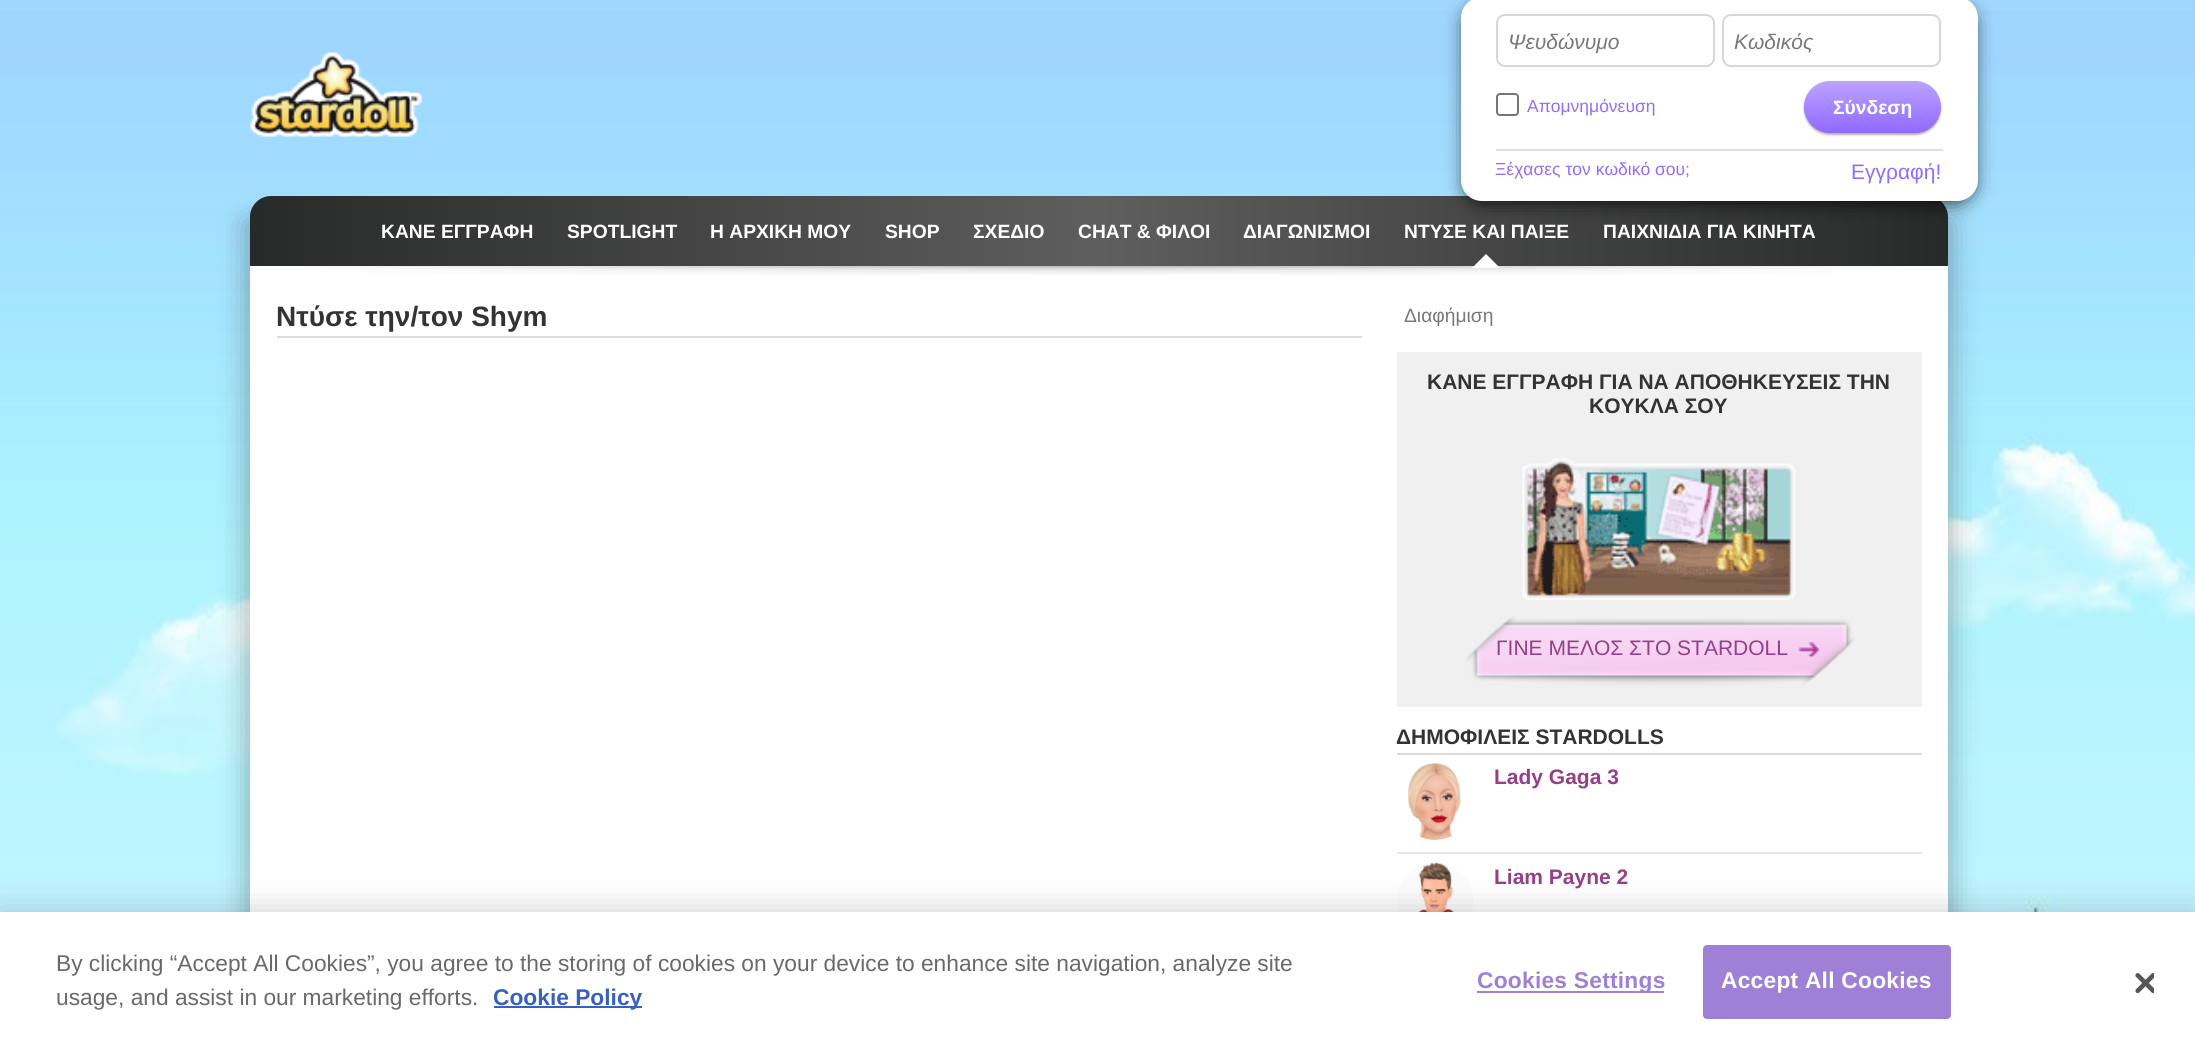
#include <cairo/cairo.h>
#include <math.h>
#include <stddef.h>

typedef struct { double x, y; const char *s; } line_t;
typedef struct { double x, y, w, h; unsigned color; } box_t;
static cairo_t *cr;

static void rgb(unsigned color)
{
	cairo_set_source_rgb(cr, (color >> 16) / 255.0, (color >> 8 & 255) / 255.0, (color & 255) / 255.0);
}

static void tracked(double x, double y, const char *s, double letter, double word)
{
	cairo_move_to(cr, x, y);
	while (*s) {
		char ch[5] = {0};
		int n = 0;
		do ch[n++] = *s++; while ((*s & 0xC0) == 0x80);
		cairo_show_text(cr, ch);
		cairo_rel_move_to(cr, letter + word * (*ch == ' '), 0);
	}
}

static void rrect(double x, double y, double w, double h, double r)
{
	cairo_new_sub_path(cr);
	cairo_arc(cr, x + w - r, y + h - r, r, 0, M_PI / 2);
	cairo_arc(cr, x + r, y + h - r, r, M_PI / 2, M_PI);
	cairo_arc(cr, x + r, y + r, r, M_PI, 1.5 * M_PI);
	cairo_arc(cr, x + w - r, y + r, r, 1.5 * M_PI, 2 * M_PI);
	cairo_close_path(cr);
}

static void soft_shadow(double x, double y, double w, double h, double r, double blur, double alpha)
{
	cairo_push_group_with_content(cr, CAIRO_CONTENT_ALPHA);
	cairo_set_operator(cr, CAIRO_OPERATOR_SOURCE);
	for (int i = 15; i >= -15 && fmin(w, h) + blur * i / 3 > 0; i -= 2) {
		double e = blur * i / 6;
		cairo_set_source_rgba(cr, 0, 0, 0, alpha * erfc((i - 1) / 8.5) / 2);
		rrect(x - e, y - e, w + 2 * e, h + 2 * e, fmax(0, fmin(r + e + blur * .6, fmin(w, h) / 2 + e)));
		cairo_fill(cr);
	}
	cairo_pattern_t *soft = cairo_pop_group(cr);
	cairo_mask(cr, soft);
	cairo_pattern_destroy(soft);
}

static void image(const char *path, double x, double y, double w, double h)
{
	cairo_surface_t *image = cairo_image_surface_create_from_png(path);
	cairo_save(cr);
	cairo_set_source_surface(cr, image, x, y);
	cairo_rectangle(cr, x, y, w, h);
	cairo_fill(cr);
	cairo_restore(cr);
	cairo_surface_destroy(image);
}

int main(void) {
	cairo_surface_t *surface = cairo_image_surface_create(CAIRO_FORMAT_RGB24, 2195, 1055);
	cr = cairo_create(surface);
	cairo_font_options_t *options = cairo_font_options_create();
	cairo_font_options_set_hint_metrics(options, CAIRO_HINT_METRICS_OFF);
	cairo_font_options_set_hint_style(options, CAIRO_HINT_STYLE_NONE);
	cairo_set_font_options(cr, options);
	cairo_set_miter_limit(cr, 4);
	cairo_pattern_t *gradient;
	rgb(0xffffff);
	cairo_paint(cr);
	image("img/1.png", 0, 0, 2195, 912);
	image("img/2.png", 250, 52, 172, 85);
	rgb(0x000000);
	soft_shadow(247, 222, 35, 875, 0, 14, 0.3);
	soft_shadow(1916, 222, 35, 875, 0, 14, 0.3);
	gradient = cairo_pattern_create_linear(250, 231, 1948, 231);
	cairo_pattern_add_color_stop_rgba(gradient, 0, 0.157, 0.161, 0.161, 1);
	cairo_pattern_add_color_stop_rgba(gradient, 0.5, 0.369, 0.369, 0.369, 1);
	cairo_pattern_add_color_stop_rgba(gradient, 1, 0.157, 0.161, 0.161, 1);
	cairo_set_source(cr, gradient);
	cairo_pattern_destroy(gradient);
	cairo_new_path(cr);
	cairo_move_to(cr, 271, 196);
	cairo_line_to(cr, 1927, 196);
	cairo_curve_to(cr, 1938.5, 196, 1948, 205.5, 1948, 217);
	cairo_line_to(cr, 1948, 266);
	cairo_line_to(cr, 250, 266);
	cairo_line_to(cr, 250, 217);
	cairo_curve_to(cr, 250, 205.5, 259.5, 196, 271, 196);
	cairo_close_path(cr);
	cairo_fill(cr);
	rgb(0x000000);
	soft_shadow(1468, 9, 503, 191, 14, 10.5, 1);
	rgb(0xffffff);
	rrect(1461, -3, 517, 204, 21);
	cairo_fill(cr);
	rrect(1497, 15, 217, 51, 8);
	rgb(0xd7d7d7);
	cairo_stroke(cr);
	rrect(1723, 15, 217, 51, 8);
	cairo_stroke(cr);
	rrect(1497, 94, 21, 21, 3);
	rgb(0x767676);
	cairo_stroke(cr);
	rgb(0x000000);
	soft_shadow(1804, 82, 137, 53, 26.5, 1, 0.3);
	gradient = cairo_pattern_create_linear(1873, 80, 1873, 133);
	cairo_pattern_add_color_stop_rgba(gradient, 0, 0.745, 0.643, 1, 1);
	cairo_pattern_add_color_stop_rgba(gradient, 1, 0.565, 0.412, 1, 1);
	cairo_set_source(cr, gradient);
	cairo_pattern_destroy(gradient);
	rrect(1804, 81, 137, 52, 26);
	cairo_fill(cr);
	rgb(0xdfdfdf);
	cairo_rectangle(cr, 1496, 149, 447, 2);
	cairo_fill(cr);
	rgb(0xffffff);
	cairo_rectangle(cr, 250, 266, 1698, 646);
	cairo_fill(cr);
	image("img/3.png", 304, 266, 1594, 9);
	cairo_new_path(cr);
	cairo_move_to(cr, 1500, 268);
	cairo_line_to(cr, 1472, 268);
	cairo_line_to(cr, 1486, 254);
	cairo_close_path(cr);
	cairo_fill(cr);
	rgb(0xdddddd);
	cairo_rectangle(cr, 277, 336, 1085, 2);
	cairo_fill(cr);
	rgb(0xf0f0f0);
	cairo_rectangle(cr, 1397, 352, 525, 355);
	cairo_fill(cr);
	image("img/4.png", 1522, 458, 274, 142);
	image("img/5.png", 1465, 616, 390, 70);
	image("img/6.png", 1798, 641, 22, 16);
	rgb(0xdddddd);
	cairo_rectangle(cr, 1397, 753, 525, 2);
	cairo_fill(cr);
	rgb(0xe5e5e5);
	cairo_rectangle(cr, 1397, 852, 525, 2);
	cairo_fill(cr);
	image("img/7.png", 1408, 763, 53, 77);
	image("img/8.png", 1397, 862, 76, 50);
	rgb(0x000000);
	soft_shadow(0, 912, 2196, 143, 0, 16, 0.2);
	{
		static const box_t items[] = {
			{0, 912, 2195, 143, 0xffffff},
			{494, 1006, 148, 2, 0x3860be},
			{1477, 991, 187, 2, 0x9e80d6},
		};
		for (size_t i = 0; i < sizeof items / sizeof *items; i++) {
			rgb(items[i].color);
			cairo_rectangle(cr, items[i].x, items[i].y, items[i].w, items[i].h);
			cairo_fill(cr);
		}
	}
	rrect(1704, 946, 246, 72, 3);
	cairo_fill_preserve(cr);
	cairo_stroke(cr);
	image("img/9.png", 2135, 973, 19, 21);
	cairo_select_font_face(cr, "Liberation Sans", CAIRO_FONT_SLANT_ITALIC, CAIRO_FONT_WEIGHT_NORMAL);
	cairo_set_font_size(cr, 21);
	rgb(0x787878);
	cairo_move_to(cr, 1508, 49);
	cairo_show_text(cr, "Ψευδώνυμο");
	cairo_move_to(cr, 1734, 49);
	cairo_show_text(cr, "Κωδικός");
	cairo_select_font_face(cr, "Liberation Sans", CAIRO_FONT_SLANT_NORMAL, CAIRO_FONT_WEIGHT_NORMAL);
	cairo_set_font_size(cr, 17.5);
	rgb(0x906efb);
	cairo_move_to(cr, 1527, 112);
	cairo_show_text(cr, "Απομνημόνευση");
	cairo_select_font_face(cr, "Liberation Sans", CAIRO_FONT_SLANT_NORMAL, CAIRO_FONT_WEIGHT_BOLD);
	cairo_set_font_size(cr, 19.25);
	rgb(0xffffff);
	cairo_move_to(cr, 1833, 114);
	cairo_show_text(cr, "Σύνδεση");
	cairo_select_font_face(cr, "Liberation Sans", CAIRO_FONT_SLANT_NORMAL, CAIRO_FONT_WEIGHT_NORMAL);
	cairo_set_font_size(cr, 17.5);
	rgb(0x906efb);
	cairo_move_to(cr, 1495, 175);
	cairo_show_text(cr, "Ξέχασες τον κωδικό σου;");
	cairo_set_font_size(cr, 21);
	cairo_move_to(cr, 1851, 179);
	cairo_show_text(cr, "Εγγραφή!");
	cairo_select_font_face(cr, "Liberation Sans", CAIRO_FONT_SLANT_NORMAL, CAIRO_FONT_WEIGHT_BOLD);
	cairo_set_font_size(cr, 19.25);
	rgb(0xffffff);
	{
		static const line_t items[] = {
			{381, 238, "ΚΑΝΕ ΕΓΓΡΑΦΗ"},
			{567, 238, "SPOTLIGHT"},
			{710, 238, "Η ΑΡΧΙΚΗ ΜΟΥ"},
			{885, 238, "SHOP"},
			{973, 238, "ΣΧΕΔΙΟ"},
			{1078, 238, "CHAT & ΦΙΛΟΙ"},
			{1243, 238, "ΔΙΑΓΩΝΙΣΜΟΙ"},
			{1404, 238, "ΝΤΥΣΕ ΚΑΙ ΠΑΙΞΕ"},
			{1603, 238, "ΠΑΙΧΝΙΔΙΑ ΓΙΑ ΚΙΝΗΤΑ"},
		};
		for (size_t i = 0; i < sizeof items / sizeof *items; i++) {
			cairo_move_to(cr, items[i].x, items[i].y);
			cairo_show_text(cr, items[i].s);
		}
	}
	cairo_set_font_size(cr, 28);
	rgb(0x333333);
	cairo_move_to(cr, 276, 326);
	cairo_show_text(cr, "Ντύσε την/τον Shym");
	cairo_select_font_face(cr, "Liberation Sans", CAIRO_FONT_SLANT_NORMAL, CAIRO_FONT_WEIGHT_NORMAL);
	cairo_set_font_size(cr, 19.25);
	rgb(0x787878);
	cairo_move_to(cr, 1404, 322);
	cairo_show_text(cr, "Διαφήμιση");
	cairo_select_font_face(cr, "Liberation Sans", CAIRO_FONT_SLANT_NORMAL, CAIRO_FONT_WEIGHT_BOLD);
	cairo_set_font_size(cr, 21);
	rgb(0x333333);
	cairo_move_to(cr, 1427, 389);
	cairo_show_text(cr, "ΚΑΝΕ ΕΓΓΡΑΦΗ ΓΙΑ ΝΑ ΑΠΟΘΗΚΕΥΣΕΙΣ ΤΗΝ");
	cairo_move_to(cr, 1589, 413);
	cairo_show_text(cr, "ΚΟΥΚΛΑ ΣΟΥ");
	cairo_select_font_face(cr, "Liberation Sans", CAIRO_FONT_SLANT_NORMAL, CAIRO_FONT_WEIGHT_NORMAL);
	rgb(0x943f88);
	cairo_move_to(cr, 1496, 655);
	cairo_show_text(cr, "ΓΙΝΕ ΜΕΛΟΣ ΣΤΟ STARDOLL");
	cairo_select_font_face(cr, "Liberation Sans", CAIRO_FONT_SLANT_NORMAL, CAIRO_FONT_WEIGHT_BOLD);
	rgb(0x333333);
	cairo_move_to(cr, 1396, 744);
	cairo_show_text(cr, "ΔΗΜΟΦΙΛΕΙΣ STARDOLLS");
	rgb(0x943f88);
	cairo_move_to(cr, 1494, 784);
	cairo_show_text(cr, "Lady Gaga 3");
	cairo_move_to(cr, 1494, 884);
	cairo_show_text(cr, "Liam Payne 2");
	cairo_select_font_face(cr, "Liberation Sans", CAIRO_FONT_SLANT_NORMAL, CAIRO_FONT_WEIGHT_NORMAL);
	cairo_set_font_size(cr, 22.75);
	rgb(0x696969);
	cairo_move_to(cr, 56, 971);
	cairo_show_text(cr, "By clicking “Accept All Cookies”, you agree to the storing of cookies on your device to enhance site navigation, analyze site");
	cairo_move_to(cr, 56, 1005);
	cairo_show_text(cr, "usage, and assist in our marketing efforts.");
	cairo_select_font_face(cr, "Liberation Sans", CAIRO_FONT_SLANT_NORMAL, CAIRO_FONT_WEIGHT_BOLD);
	rgb(0x3860be);
	cairo_move_to(cr, 493, 1005);
	cairo_show_text(cr, "Cookie Policy");
	rgb(0x9e80d6);
	tracked(1477, 988, "Cookies Settings", 0.25, 0);
	rgb(0xffffff);
	tracked(1721, 988, "Accept All Cookies", 0.25, 0);
	cairo_surface_write_to_png(surface, "page.png");
	cairo_font_options_destroy(options);
	cairo_destroy(cr);
	cairo_surface_destroy(surface);
	return 0;
}
